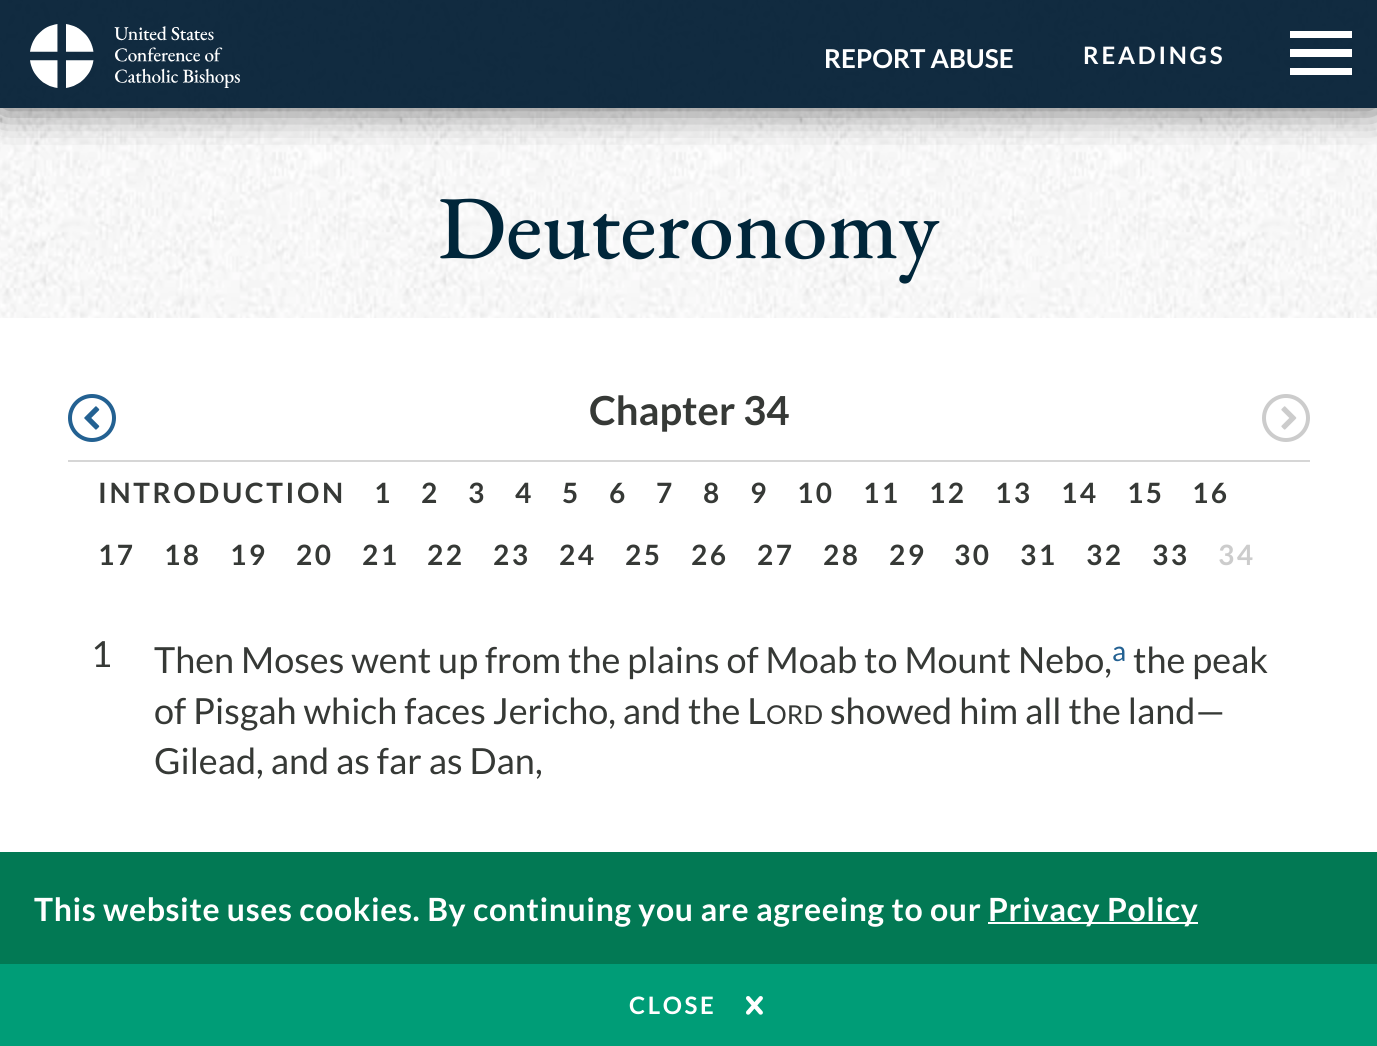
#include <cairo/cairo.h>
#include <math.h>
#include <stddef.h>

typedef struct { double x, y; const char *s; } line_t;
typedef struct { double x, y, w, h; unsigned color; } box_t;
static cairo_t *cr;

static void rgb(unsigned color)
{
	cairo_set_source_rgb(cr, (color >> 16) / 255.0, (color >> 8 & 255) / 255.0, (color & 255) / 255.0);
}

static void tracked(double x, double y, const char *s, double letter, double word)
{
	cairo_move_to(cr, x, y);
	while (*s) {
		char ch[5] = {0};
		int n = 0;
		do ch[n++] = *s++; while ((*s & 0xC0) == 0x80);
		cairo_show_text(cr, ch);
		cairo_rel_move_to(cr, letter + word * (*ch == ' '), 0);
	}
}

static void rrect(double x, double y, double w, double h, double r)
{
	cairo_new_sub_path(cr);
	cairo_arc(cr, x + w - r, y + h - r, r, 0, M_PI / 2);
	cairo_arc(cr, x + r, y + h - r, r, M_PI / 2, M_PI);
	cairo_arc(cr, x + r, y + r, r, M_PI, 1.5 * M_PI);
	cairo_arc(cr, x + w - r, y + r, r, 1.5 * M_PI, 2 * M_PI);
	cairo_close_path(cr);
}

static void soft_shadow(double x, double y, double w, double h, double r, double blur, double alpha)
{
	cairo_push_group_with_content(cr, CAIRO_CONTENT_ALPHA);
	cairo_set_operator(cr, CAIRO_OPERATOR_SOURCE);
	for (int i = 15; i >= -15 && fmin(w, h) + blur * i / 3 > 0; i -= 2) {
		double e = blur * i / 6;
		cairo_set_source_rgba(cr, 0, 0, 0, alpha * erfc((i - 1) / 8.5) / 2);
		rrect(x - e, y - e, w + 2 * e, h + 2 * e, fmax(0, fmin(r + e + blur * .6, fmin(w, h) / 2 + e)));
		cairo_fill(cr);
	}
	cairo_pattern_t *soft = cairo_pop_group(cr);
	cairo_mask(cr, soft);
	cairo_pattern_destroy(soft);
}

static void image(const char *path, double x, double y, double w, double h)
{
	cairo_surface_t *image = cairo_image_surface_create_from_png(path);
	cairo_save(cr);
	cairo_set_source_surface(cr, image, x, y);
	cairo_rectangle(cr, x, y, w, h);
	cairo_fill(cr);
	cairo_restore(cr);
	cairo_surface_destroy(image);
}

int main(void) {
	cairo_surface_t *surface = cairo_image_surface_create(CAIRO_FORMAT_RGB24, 1377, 1046);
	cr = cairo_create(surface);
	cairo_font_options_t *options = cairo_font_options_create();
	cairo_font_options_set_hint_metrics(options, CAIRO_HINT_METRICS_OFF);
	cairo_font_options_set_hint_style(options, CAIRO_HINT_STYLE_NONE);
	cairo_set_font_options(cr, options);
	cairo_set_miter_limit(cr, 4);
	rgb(0xffffff);
	cairo_paint(cr);
	image("img/1.png", 0, 0, 1377, 318);
	cairo_save(cr);
	cairo_rectangle(cr, 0, 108, 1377, 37);
	cairo_clip(cr);
	rgb(0x000000);
	soft_shadow(0, 0, 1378, 108, 0, 20, 0.6);
	cairo_restore(cr);
	cairo_set_source_rgba(cr, 0.024, 0.129, 0.216, 0.95);
	cairo_rectangle(cr, 0, 0, 1377, 108);
	cairo_fill(cr);
	image("img/2.png", 30, 24, 210, 64);
	cairo_save(cr);
	cairo_rectangle(cr, 1290, 20, 62, 66);
	cairo_clip(cr);
	rgb(0xffffff);
	cairo_new_path(cr);
	cairo_move_to(cr, 1290, 75);
	cairo_line_to(cr, 1356, 75);
	cairo_line_to(cr, 1356, 68);
	cairo_line_to(cr, 1290, 68);
	cairo_close_path(cr);
	cairo_move_to(cr, 1290, 57);
	cairo_line_to(cr, 1356, 57);
	cairo_line_to(cr, 1356, 49);
	cairo_line_to(cr, 1290, 49);
	cairo_close_path(cr);
	cairo_move_to(cr, 1290, 31);
	cairo_line_to(cr, 1290, 38);
	cairo_line_to(cr, 1356, 38);
	cairo_line_to(cr, 1356, 31);
	cairo_close_path(cr);
	cairo_fill(cr);
	cairo_restore(cr);
	rgb(0xd6d6d6);
	cairo_rectangle(cr, 68, 460, 1242, 2);
	cairo_fill(cr);
	cairo_arc(cr, 92, 418, 22, 0, 2 * M_PI);
	rgb(0x236192);
	cairo_set_line_width(cr, 4);
	cairo_stroke(cr);
	image("img/3.png", 84, 406, 16, 24);
	cairo_arc(cr, 1286, 418, 22, 0, 2 * M_PI);
	rgb(0xcccccc);
	cairo_stroke(cr);
	image("img/4.png", 1281, 406, 16, 24);
	{
		static const box_t items[] = {
			{0, 964, 1377, 82, 0x009d77},
			{0, 852, 1377, 112, 0x027954},
			{988, 922, 210, 2, 0xffffff},
		};
		for (size_t i = 0; i < sizeof items / sizeof *items; i++) {
			rgb(items[i].color);
			cairo_rectangle(cr, items[i].x, items[i].y, items[i].w, items[i].h);
			cairo_fill(cr);
		}
	}
	image("img/5.png", 746, 996, 17, 19);
	cairo_select_font_face(cr, "Lato", CAIRO_FONT_SLANT_NORMAL, CAIRO_FONT_WEIGHT_BOLD);
	cairo_set_font_size(cr, 26);
	cairo_move_to(cr, 824, 68);
	cairo_show_text(cr, "REPORT ABUSE");
	cairo_set_font_size(cr, 24);
	tracked(1083, 64, "READINGS", 2.75, 0);
	cairo_select_font_face(cr, "EB Garamond Medium", CAIRO_FONT_SLANT_NORMAL, CAIRO_FONT_WEIGHT_NORMAL);
	cairo_set_font_size(cr, 90);
	rgb(0x00263a);
	cairo_move_to(cr, 438, 258);
	cairo_show_text(cr, "Deuteronomy");
	cairo_select_font_face(cr, "Lato", CAIRO_FONT_SLANT_NORMAL, CAIRO_FONT_WEIGHT_BOLD);
	cairo_set_font_size(cr, 40);
	rgb(0x363936);
	cairo_move_to(cr, 589, 425);
	cairo_show_text(cr, "Chapter 34");
	cairo_set_font_size(cr, 28);
	{
		static const line_t items[] = {
			{98, 503, "INTRODUCTION"},
			{374, 503, "1"},
			{421, 503, "2"},
			{468, 503, "3"},
			{515, 503, "4"},
			{562, 503, "5"},
			{609, 503, "6"},
			{656, 503, "7"},
			{703, 503, "8"},
			{750, 503, "9"},
			{797, 503, "10"},
			{863, 503, "11"},
			{929, 503, "12"},
			{995, 503, "13"},
			{1061, 503, "14"},
			{1127, 503, "15"},
			{1192, 503, "16"},
			{98, 565, "17"},
			{164, 565, "18"},
			{230, 565, "19"},
			{296, 565, "20"},
			{362, 565, "21"},
			{427, 565, "22"},
			{493, 565, "23"},
			{559, 565, "24"},
			{625, 565, "25"},
			{691, 565, "26"},
			{757, 565, "27"},
			{823, 565, "28"},
			{889, 565, "29"},
			{954, 565, "30"},
			{1020, 565, "31"},
			{1086, 565, "32"},
			{1152, 565, "33"},
		};
		for (size_t i = 0; i < sizeof items / sizeof *items; i++) {
			tracked(items[i].x, items[i].y, items[i].s, 2.6, 0);
		}
	}
	rgb(0xcccccc);
	tracked(1218, 565, "34", 2.6, 0);
	cairo_select_font_face(cr, "Lato", CAIRO_FONT_SLANT_NORMAL, CAIRO_FONT_WEIGHT_NORMAL);
	cairo_set_font_size(cr, 36);
	rgb(0x363936);
	cairo_move_to(cr, 91, 667);
	cairo_show_text(cr, "1");
	cairo_move_to(cr, 154, 673);
	cairo_show_text(cr, "Then Moses went up from the plains of Moab to Mount Nebo,");
	cairo_set_font_size(cr, 28);
	rgb(0x236192);
	cairo_move_to(cr, 1112, 661);
	cairo_show_text(cr, "a");
	cairo_set_font_size(cr, 36);
	rgb(0x363936);
	cairo_move_to(cr, 1133, 673);
	cairo_show_text(cr, "the peak");
	cairo_move_to(cr, 154, 724);
	cairo_show_text(cr, "of Pisgah which faces Jericho, and the L");
	cairo_set_font_size(cr, 26);
	cairo_move_to(cr, 766, 724);
	cairo_show_text(cr, "ORD");
	cairo_set_font_size(cr, 36);
	cairo_move_to(cr, 830, 724);
	cairo_show_text(cr, "showed him all the land—");
	cairo_move_to(cr, 154, 774);
	cairo_show_text(cr, "Gilead, and as far as Dan,");
	cairo_select_font_face(cr, "Lato", CAIRO_FONT_SLANT_NORMAL, CAIRO_FONT_WEIGHT_BOLD);
	cairo_set_font_size(cr, 32);
	rgb(0xffffff);
	tracked(34, 921, "This website uses cookies. By continuing you are agreeing to our", 0.6, 0);
	tracked(988, 921, "Privacy Policy", 0.6, 0);
	cairo_set_font_size(cr, 24);
	tracked(629, 1014, "CLOSE", 2.6, 0);
	cairo_surface_write_to_png(surface, "page.png");
	cairo_font_options_destroy(options);
	cairo_destroy(cr);
	cairo_surface_destroy(surface);
	return 0;
}
